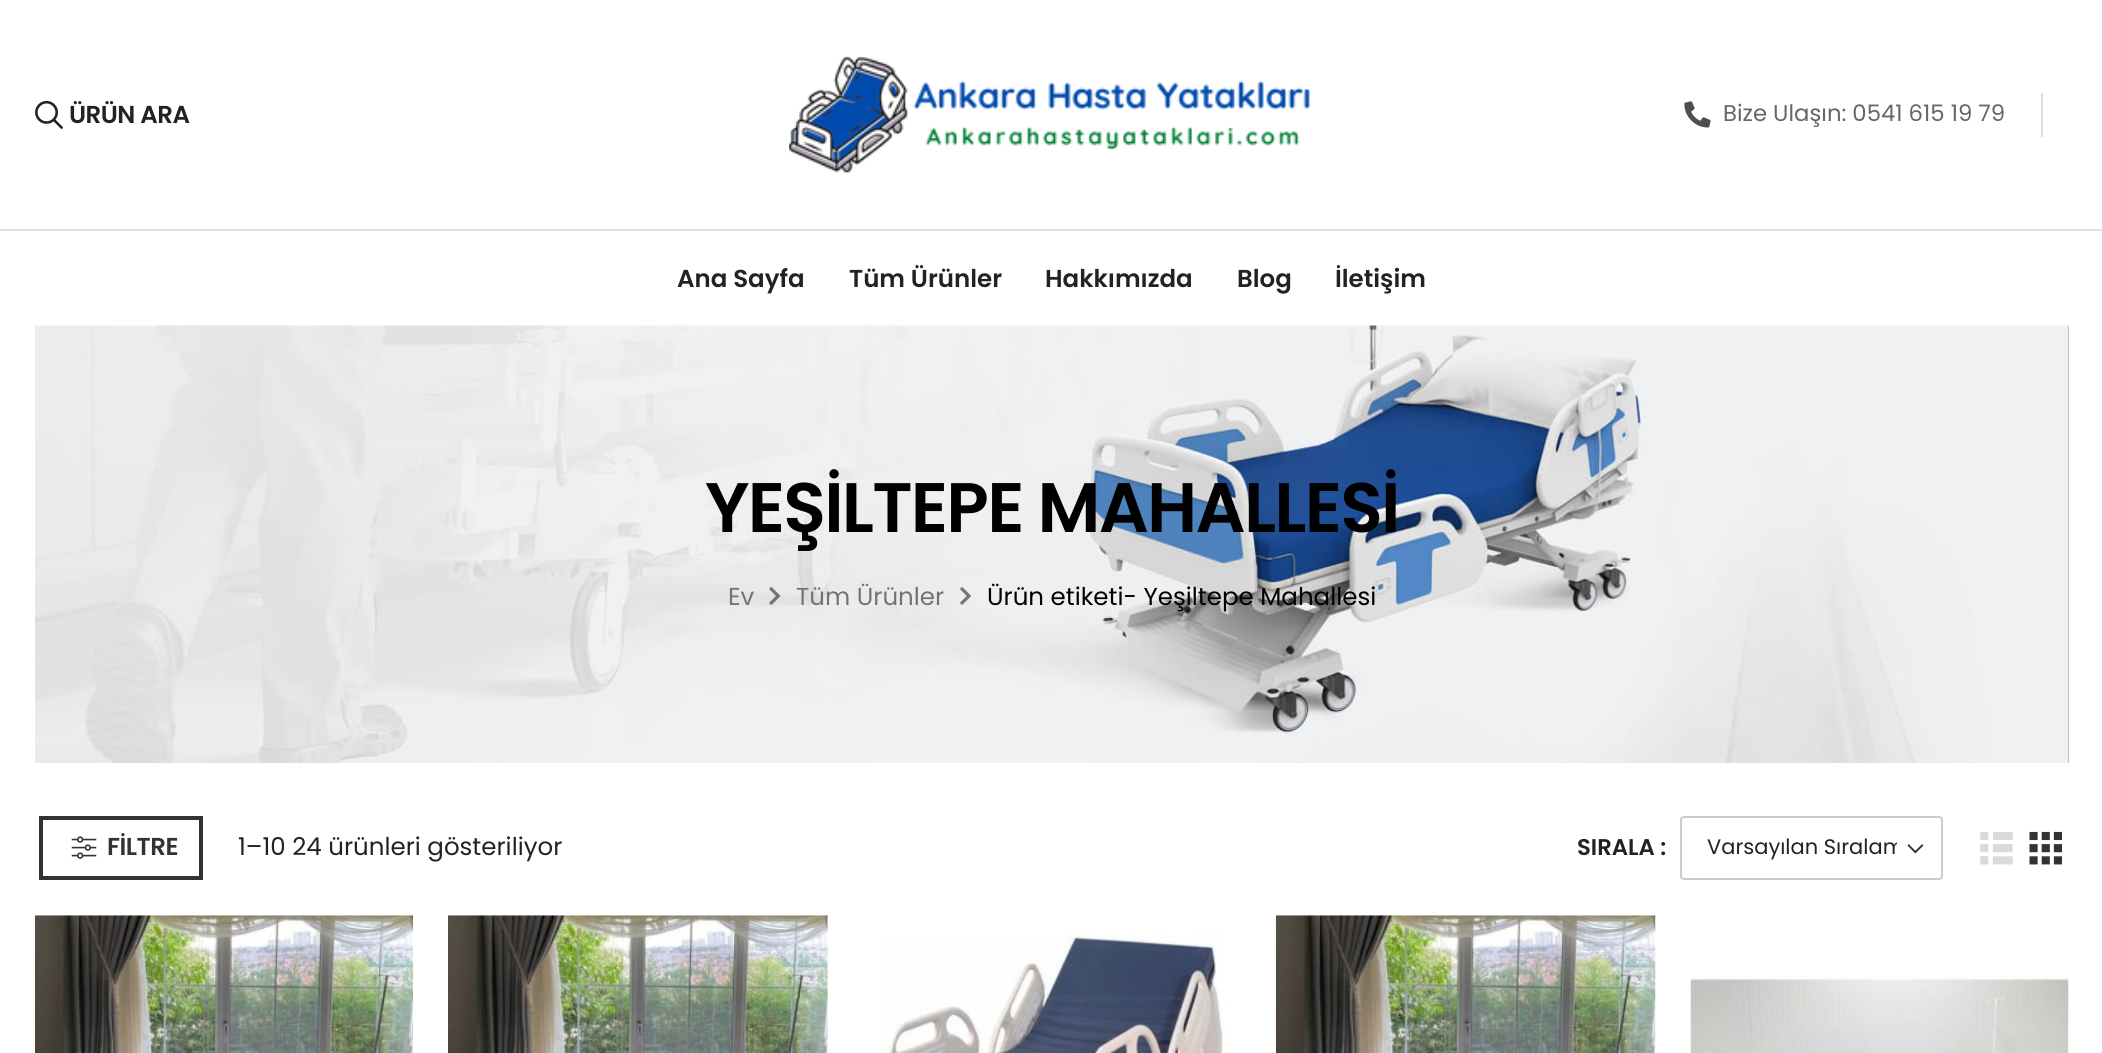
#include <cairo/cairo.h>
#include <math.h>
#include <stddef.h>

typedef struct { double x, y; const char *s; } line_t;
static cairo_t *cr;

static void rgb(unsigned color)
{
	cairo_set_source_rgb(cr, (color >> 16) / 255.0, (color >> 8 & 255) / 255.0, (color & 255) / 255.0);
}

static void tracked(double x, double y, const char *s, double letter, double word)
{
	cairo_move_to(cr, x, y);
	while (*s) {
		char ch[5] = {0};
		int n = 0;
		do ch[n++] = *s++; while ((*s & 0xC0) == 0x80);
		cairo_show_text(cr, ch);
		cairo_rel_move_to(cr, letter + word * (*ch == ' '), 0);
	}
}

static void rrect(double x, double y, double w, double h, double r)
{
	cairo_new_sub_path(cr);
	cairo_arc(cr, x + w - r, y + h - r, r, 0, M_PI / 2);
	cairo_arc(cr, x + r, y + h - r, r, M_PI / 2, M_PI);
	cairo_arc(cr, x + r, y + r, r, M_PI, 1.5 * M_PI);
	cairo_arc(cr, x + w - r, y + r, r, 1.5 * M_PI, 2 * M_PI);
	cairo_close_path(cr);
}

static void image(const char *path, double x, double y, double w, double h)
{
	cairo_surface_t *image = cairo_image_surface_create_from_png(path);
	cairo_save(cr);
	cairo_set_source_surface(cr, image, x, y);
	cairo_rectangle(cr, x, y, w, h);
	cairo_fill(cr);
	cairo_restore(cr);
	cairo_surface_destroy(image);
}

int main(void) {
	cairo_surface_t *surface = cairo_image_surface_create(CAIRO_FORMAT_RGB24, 2102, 1053);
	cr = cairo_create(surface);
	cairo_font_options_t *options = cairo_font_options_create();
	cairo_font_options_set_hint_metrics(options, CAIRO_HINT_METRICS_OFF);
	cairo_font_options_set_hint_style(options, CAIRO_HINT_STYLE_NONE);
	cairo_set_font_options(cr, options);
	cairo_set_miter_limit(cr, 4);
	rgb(0xffffff);
	cairo_paint(cr);
	rgb(0xe1e1e1);
	cairo_rectangle(cr, 0, 229, 2102, 2);
	cairo_fill(cr);
	image("img/1.png", 35, 100, 28, 29);
	image("img/2.png", 789, 56, 522, 118);
	image("img/3.png", 1684, 101, 27, 27);
	cairo_rectangle(cr, 2041, 93, 2, 44);
	cairo_fill(cr);
	rgb(0x8e8e8e);
	cairo_rectangle(cr, 2068, 326, 1, 437);
	cairo_fill(cr);
	image("img/4.png", 35, 325, 2034, 438);
	image("img/5.png", 769, 587, 12, 18);
	image("img/6.png", 960, 587, 11, 18);
	cairo_rectangle(cr, 41, 818, 160, 60);
	rgb(0x333333);
	cairo_set_line_width(cr, 4);
	cairo_stroke(cr);
	image("img/7.png", 71, 836, 26, 23);
	image("img/8.png", 1907, 844, 17, 10);
	rrect(1681, 817, 261, 62, 3);
	rgb(0xcccccc);
	cairo_set_line_width(cr, 2);
	cairo_stroke(cr);
	image("img/9.png", 1980, 832, 33, 33);
	image("img/10.png", 2029, 831, 33, 34);
	image("img/11.png", 35, 915, 378, 138);
	image("img/12.png", 448, 915, 380, 138);
	image("img/13.png", 883, 935, 342, 118);
	image("img/14.png", 1275, 915, 381, 138);
	image("img/15.png", 1690, 976, 379, 77);
	cairo_select_font_face(cr, "Poppins SemiBold", CAIRO_FONT_SLANT_NORMAL, CAIRO_FONT_WEIGHT_NORMAL);
	cairo_set_font_size(cr, 24.5);
	rgb(0x222222);
	tracked(69, 123, "ÜRÜN ARA", -0.5, 0);
	cairo_select_font_face(cr, "Poppins", CAIRO_FONT_SLANT_NORMAL, CAIRO_FONT_WEIGHT_NORMAL);
	cairo_set_font_size(cr, 22.75);
	rgb(0x666666);
	cairo_move_to(cr, 1723, 121);
	cairo_show_text(cr, "Bize Ulaşın: 0541 615 19 79");
	cairo_select_font_face(cr, "Poppins SemiBold", CAIRO_FONT_SLANT_NORMAL, CAIRO_FONT_WEIGHT_NORMAL);
	cairo_set_font_size(cr, 24.5);
	rgb(0x222222);
	{
		static const line_t items[] = {
			{677, 287, "Ana Sayfa"},
			{849, 287, "Tüm Ürünler"},
			{1045, 287, "Hakkımızda"},
			{1237, 287, "Blog"},
			{1335, 287, "İletişim"},
		};
		for (size_t i = 0; i < sizeof items / sizeof *items; i++) {
			cairo_move_to(cr, items[i].x, items[i].y);
			cairo_show_text(cr, items[i].s);
		}
	}
	cairo_set_font_size(cr, 70);
	rgb(0x000000);
	tracked(705, 532, "YEŞİLTEPE MAHALLESİ", -1.75, 0);
	cairo_select_font_face(cr, "Poppins", CAIRO_FONT_SLANT_NORMAL, CAIRO_FONT_WEIGHT_NORMAL);
	cairo_set_font_size(cr, 24.5);
	rgb(0x727374);
	cairo_move_to(cr, 728, 605);
	cairo_show_text(cr, "Ev");
	cairo_move_to(cr, 796, 605);
	cairo_show_text(cr, "Tüm Ürünler");
	rgb(0x000000);
	cairo_move_to(cr, 987, 605);
	cairo_show_text(cr, "Ürün etiketi- Yeşiltepe Mahallesi");
	cairo_select_font_face(cr, "Poppins SemiBold", CAIRO_FONT_SLANT_NORMAL, CAIRO_FONT_WEIGHT_NORMAL);
	rgb(0x333333);
	tracked(107, 855, "FİLTRE", -0.5, 0);
	cairo_select_font_face(cr, "Poppins", CAIRO_FONT_SLANT_NORMAL, CAIRO_FONT_WEIGHT_NORMAL);
	rgb(0x222222);
	cairo_move_to(cr, 238, 855);
	cairo_show_text(cr, "1–10 24 ürünleri gösteriliyor");
	cairo_select_font_face(cr, "Poppins SemiBold", CAIRO_FONT_SLANT_NORMAL, CAIRO_FONT_WEIGHT_NORMAL);
	cairo_set_font_size(cr, 22.75);
	cairo_move_to(cr, 1577, 855);
	cairo_show_text(cr, "SIRALA :");
	cairo_save(cr);
	cairo_rectangle(cr, 1706, 831, 191, 32);
	cairo_clip(cr);
	cairo_select_font_face(cr, "Poppins", CAIRO_FONT_SLANT_NORMAL, CAIRO_FONT_WEIGHT_NORMAL);
	cairo_set_font_size(cr, 21);
	cairo_move_to(cr, 1707, 854);
	cairo_show_text(cr, "Varsayılan Sıralam");
	cairo_restore(cr);
	cairo_surface_write_to_png(surface, "page.png");
	cairo_font_options_destroy(options);
	cairo_destroy(cr);
	cairo_surface_destroy(surface);
	return 0;
}
